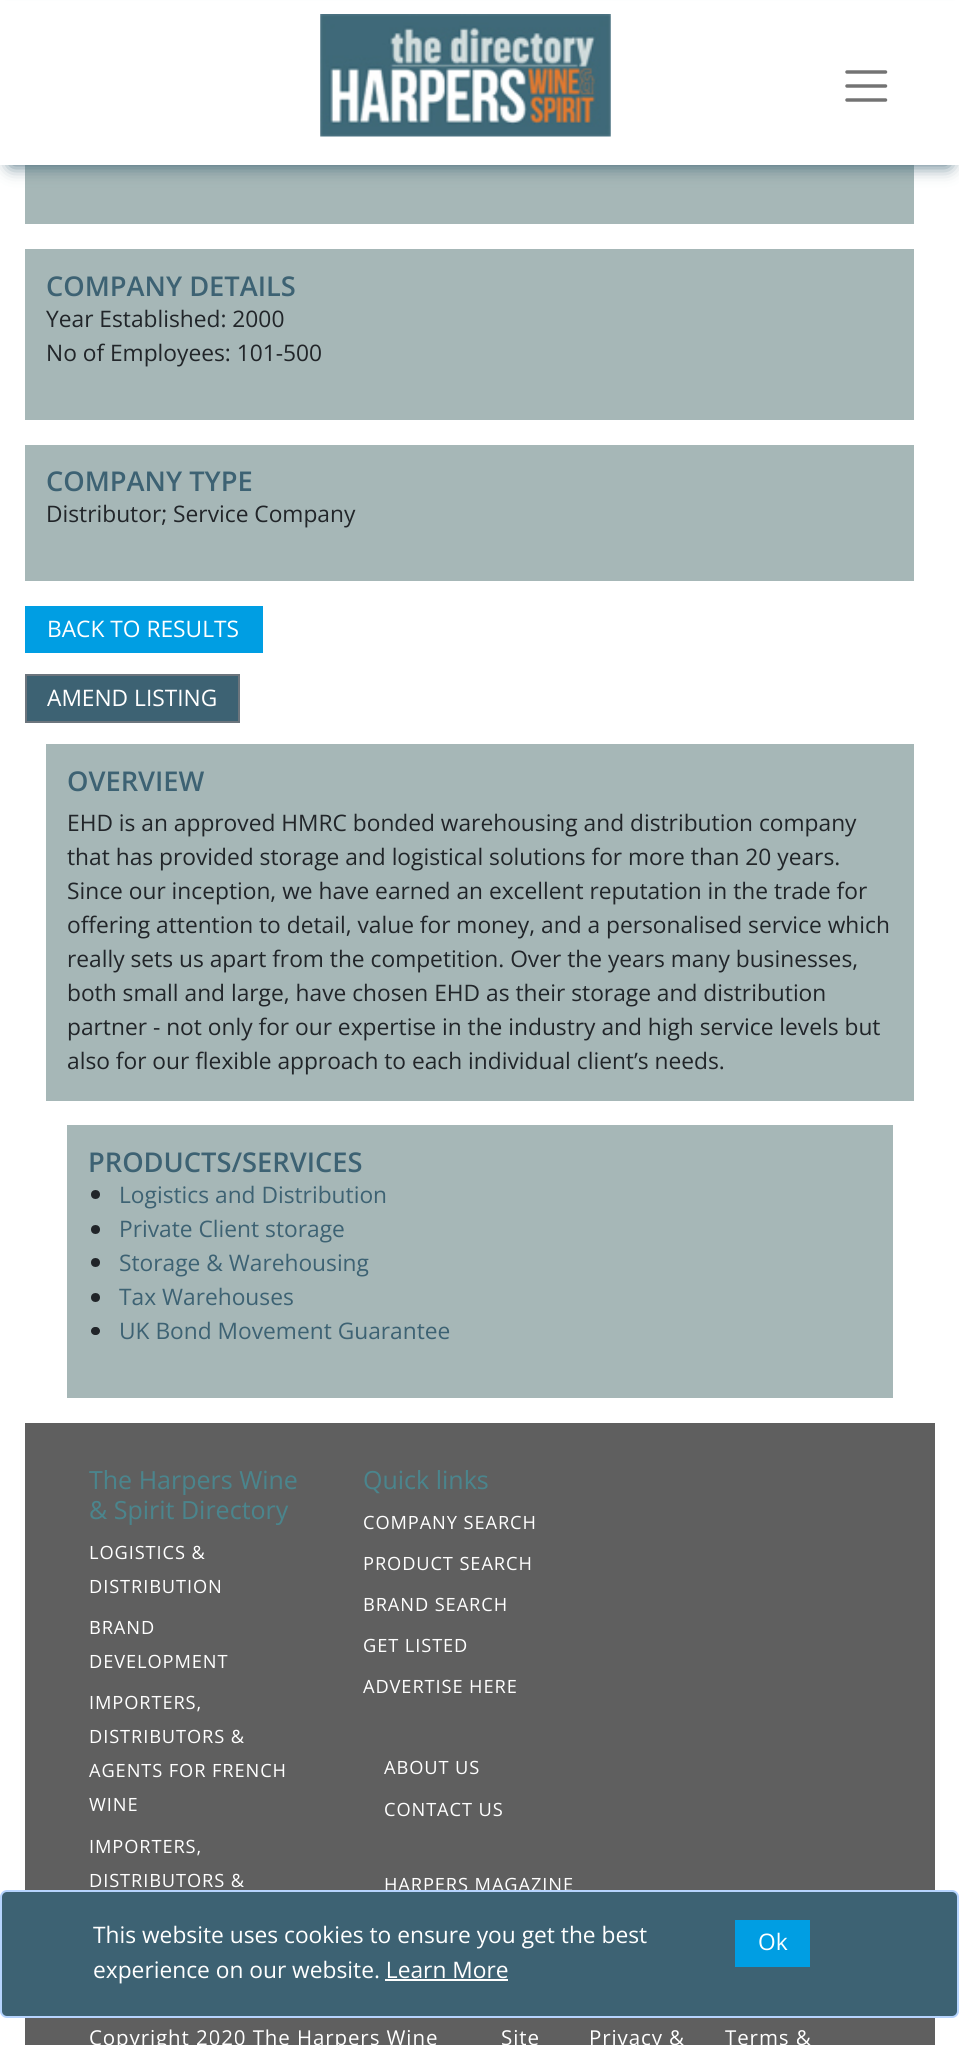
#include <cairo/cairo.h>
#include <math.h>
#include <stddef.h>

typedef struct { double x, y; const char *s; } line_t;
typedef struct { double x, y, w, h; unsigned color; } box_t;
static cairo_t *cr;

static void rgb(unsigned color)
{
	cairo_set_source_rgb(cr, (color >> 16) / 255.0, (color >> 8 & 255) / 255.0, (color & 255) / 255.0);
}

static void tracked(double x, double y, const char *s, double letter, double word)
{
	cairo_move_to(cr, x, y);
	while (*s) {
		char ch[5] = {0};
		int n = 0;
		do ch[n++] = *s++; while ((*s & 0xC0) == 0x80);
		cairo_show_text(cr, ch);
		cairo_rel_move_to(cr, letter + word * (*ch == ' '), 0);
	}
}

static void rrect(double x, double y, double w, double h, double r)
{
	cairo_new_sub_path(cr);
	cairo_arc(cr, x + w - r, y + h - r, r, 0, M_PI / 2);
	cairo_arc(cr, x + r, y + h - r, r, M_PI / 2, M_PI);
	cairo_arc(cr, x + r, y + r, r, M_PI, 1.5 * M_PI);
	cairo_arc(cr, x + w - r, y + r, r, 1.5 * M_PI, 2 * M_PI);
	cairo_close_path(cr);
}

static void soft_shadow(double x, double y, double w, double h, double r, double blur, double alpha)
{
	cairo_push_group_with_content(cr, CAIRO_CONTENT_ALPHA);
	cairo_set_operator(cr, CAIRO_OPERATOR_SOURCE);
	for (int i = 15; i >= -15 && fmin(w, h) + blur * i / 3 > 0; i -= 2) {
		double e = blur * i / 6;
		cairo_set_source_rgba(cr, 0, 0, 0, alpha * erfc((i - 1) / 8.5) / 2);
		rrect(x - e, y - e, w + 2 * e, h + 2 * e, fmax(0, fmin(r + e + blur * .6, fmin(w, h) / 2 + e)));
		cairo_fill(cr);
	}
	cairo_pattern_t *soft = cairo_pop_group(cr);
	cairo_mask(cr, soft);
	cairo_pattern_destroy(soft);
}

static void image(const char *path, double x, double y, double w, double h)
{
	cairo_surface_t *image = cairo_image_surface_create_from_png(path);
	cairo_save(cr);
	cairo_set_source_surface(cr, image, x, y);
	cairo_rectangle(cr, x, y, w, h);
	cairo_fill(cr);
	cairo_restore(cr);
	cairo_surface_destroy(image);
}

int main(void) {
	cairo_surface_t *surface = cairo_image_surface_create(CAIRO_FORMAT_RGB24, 959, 2045);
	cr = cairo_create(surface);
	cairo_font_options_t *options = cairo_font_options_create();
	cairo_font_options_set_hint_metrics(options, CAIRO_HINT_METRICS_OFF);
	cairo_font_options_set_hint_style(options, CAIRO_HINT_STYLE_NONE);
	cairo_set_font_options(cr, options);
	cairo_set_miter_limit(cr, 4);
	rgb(0xffffff);
	cairo_paint(cr);
	rgb(0xa6b7b7);
	cairo_rectangle(cr, 25, 165, 889, 59);
	cairo_fill(cr);
	rgb(0x3d6273);
	soft_shadow(11, 21, 938, 144, 0, 9, 1);
	rgb(0xffffff);
	cairo_rectangle(cr, 0, 1, 959, 164);
	cairo_fill(cr);
	image("img/1.png", 320, 14, 291, 123);
	cairo_new_path(cr);
	cairo_move_to(cr, 847, 72);
	cairo_line_to(cr, 885.5, 72);
	cairo_move_to(cr, 847, 86);
	cairo_line_to(cr, 885.5, 86);
	cairo_move_to(cr, 847, 100);
	cairo_line_to(cr, 885.5, 100);
	rgb(0x737373);
	cairo_set_line_width(cr, 3.5);
	cairo_set_line_cap(cr, CAIRO_LINE_CAP_ROUND);
	cairo_stroke(cr);
	{
		static const box_t items[] = {
			{25, 249, 889, 171, 0xa6b7b7},
			{25, 445, 889, 136, 0xa6b7b7},
			{25, 606, 238, 47, 0x009ee3},
		};
		for (size_t i = 0; i < sizeof items / sizeof *items; i++) {
			rgb(items[i].color);
			cairo_rectangle(cr, items[i].x, items[i].y, items[i].w, items[i].h);
			cairo_fill(cr);
		}
	}
	rgb(0x3d6273);
	cairo_rectangle(cr, 26, 675, 213, 47);
	cairo_fill_preserve(cr);
	rgb(0x6c757d);
	cairo_set_line_width(cr, 2);
	cairo_set_line_cap(cr, CAIRO_LINE_CAP_BUTT);
	cairo_stroke(cr);
	rgb(0xa6b7b7);
	cairo_rectangle(cr, 46, 744, 868, 357);
	cairo_fill(cr);
	cairo_rectangle(cr, 67, 1125, 826, 273);
	cairo_fill(cr);
	rgb(0x212529);
	cairo_arc(cr, 95.5, 1194.5, 4.5, 0, 2 * M_PI);
	cairo_fill(cr);
	cairo_arc(cr, 95.5, 1229.5, 4.5, 0, 2 * M_PI);
	cairo_fill(cr);
	cairo_arc(cr, 95.5, 1262.5, 4.5, 0, 2 * M_PI);
	cairo_fill(cr);
	cairo_arc(cr, 95.5, 1297.5, 4.5, 0, 2 * M_PI);
	cairo_fill(cr);
	rrect(91, 1327, 9, 8, 4);
	cairo_fill(cr);
	rgb(0x5f5f5f);
	cairo_rectangle(cr, 25, 1423, 910, 622);
	cairo_fill(cr);
	cairo_select_font_face(cr, "Open Sans SemiBold", CAIRO_FONT_SLANT_NORMAL, CAIRO_FONT_WEIGHT_NORMAL);
	cairo_set_font_size(cr, 27.25);
	rgb(0x3d6273);
	cairo_move_to(cr, 46, 296);
	cairo_show_text(cr, "COMPANY DETAILS");
	cairo_select_font_face(cr, "Open Sans", CAIRO_FONT_SLANT_NORMAL, CAIRO_FONT_WEIGHT_NORMAL);
	cairo_set_font_size(cr, 22.75);
	rgb(0x212529);
	cairo_move_to(cr, 46, 327);
	cairo_show_text(cr, "Year Established: 2000");
	cairo_move_to(cr, 46, 361);
	cairo_show_text(cr, "No of Employees: 101-500");
	cairo_select_font_face(cr, "Open Sans SemiBold", CAIRO_FONT_SLANT_NORMAL, CAIRO_FONT_WEIGHT_NORMAL);
	cairo_set_font_size(cr, 27.25);
	rgb(0x3d6273);
	cairo_move_to(cr, 46, 491);
	cairo_show_text(cr, "COMPANY TYPE");
	cairo_select_font_face(cr, "Open Sans", CAIRO_FONT_SLANT_NORMAL, CAIRO_FONT_WEIGHT_NORMAL);
	cairo_set_font_size(cr, 22.75);
	rgb(0x212529);
	cairo_move_to(cr, 46, 522);
	cairo_show_text(cr, "Distributor; Service Company");
	rgb(0xffffff);
	cairo_move_to(cr, 47, 637);
	cairo_show_text(cr, "BACK TO RESULTS");
	cairo_move_to(cr, 47, 706);
	cairo_show_text(cr, "AMEND LISTING");
	cairo_select_font_face(cr, "Open Sans SemiBold", CAIRO_FONT_SLANT_NORMAL, CAIRO_FONT_WEIGHT_NORMAL);
	cairo_set_font_size(cr, 27.25);
	rgb(0x3d6273);
	cairo_move_to(cr, 67, 791);
	cairo_show_text(cr, "OVERVIEW");
	cairo_select_font_face(cr, "Open Sans", CAIRO_FONT_SLANT_NORMAL, CAIRO_FONT_WEIGHT_NORMAL);
	cairo_set_font_size(cr, 22.75);
	rgb(0x212529);
	{
		static const line_t items[] = {
			{67, 831, "EHD is an approved HMRC bonded warehousing and distribution company"},
			{67, 865, "that has provided storage and logistical solutions for more than 20 years."},
			{67, 899, "Since our inception, we have earned an excellent reputation in the trade for"},
			{67, 933, "offering attention to detail, value for money, and a personalised service which"},
			{67, 967, "really sets us apart from the competition. Over the years many businesses,"},
			{67, 1001, "both small and large, have chosen EHD as their storage and distribution"},
			{67, 1035, "partner - not only for our expertise in the industry and high service levels but"},
			{67, 1069, "also for our flexible approach to each individual client’s needs."},
		};
		for (size_t i = 0; i < sizeof items / sizeof *items; i++) {
			cairo_move_to(cr, items[i].x, items[i].y);
			cairo_show_text(cr, items[i].s);
		}
	}
	cairo_select_font_face(cr, "Open Sans SemiBold", CAIRO_FONT_SLANT_NORMAL, CAIRO_FONT_WEIGHT_NORMAL);
	cairo_set_font_size(cr, 27.25);
	rgb(0x3d6273);
	cairo_move_to(cr, 88, 1172);
	cairo_show_text(cr, "PRODUCTS/SERVICES");
	cairo_select_font_face(cr, "Open Sans", CAIRO_FONT_SLANT_NORMAL, CAIRO_FONT_WEIGHT_NORMAL);
	cairo_set_font_size(cr, 22.75);
	{
		static const line_t items[] = {
			{119, 1203, "Logistics and Distribution"},
			{119, 1237, "Private Client storage"},
			{119, 1271, "Storage & Warehousing"},
			{119, 1305, "Tax Warehouses"},
			{119, 1339, "UK Bond Movement Guarantee"},
		};
		for (size_t i = 0; i < sizeof items / sizeof *items; i++) {
			cairo_move_to(cr, items[i].x, items[i].y);
			cairo_show_text(cr, items[i].s);
		}
	}
	cairo_set_font_size(cr, 25);
	rgb(0x4a858d);
	cairo_move_to(cr, 89, 1489);
	cairo_show_text(cr, "The Harpers Wine");
	cairo_move_to(cr, 89, 1519);
	cairo_show_text(cr, "& Spirit Directory");
	cairo_set_font_size(cr, 18.25);
	rgb(0xffffff);
	{
		static const line_t items[] = {
			{89, 1559, "LOGISTICS &"},
			{89, 1593, "DISTRIBUTION"},
			{89, 1634, "BRAND"},
			{89, 1668, "DEVELOPMENT"},
			{89, 1709, "IMPORTERS,"},
			{89, 1743, "DISTRIBUTORS &"},
			{89, 1777, "AGENTS FOR FRENCH"},
			{89, 1811, "WINE"},
			{89, 1853, "IMPORTERS,"},
			{89, 1887, "DISTRIBUTORS &"},
		};
		for (size_t i = 0; i < sizeof items / sizeof *items; i++) {
			tracked(items[i].x, items[i].y, items[i].s, 0.9, 0);
		}
	}
	cairo_set_font_size(cr, 25);
	rgb(0x4a858d);
	cairo_move_to(cr, 363, 1489);
	cairo_show_text(cr, "Quick links");
	cairo_set_font_size(cr, 18.25);
	rgb(0xffffff);
	{
		static const line_t items[] = {
			{363, 1529, "COMPANY SEARCH"},
			{363, 1570, "PRODUCT SEARCH"},
			{363, 1611, "BRAND SEARCH"},
			{363, 1652, "GET LISTED"},
			{363, 1693, "ADVERTISE HERE"},
			{384, 1774, "ABOUT US"},
			{384, 1816, "CONTACT US"},
			{384, 1891, "HARPERS MAGAZINE"},
		};
		for (size_t i = 0; i < sizeof items / sizeof *items; i++) {
			tracked(items[i].x, items[i].y, items[i].s, 0.9, 0);
		}
	}
	cairo_set_font_size(cr, 20.5);
	{
		static const line_t items[] = {
			{89, 2045, "Copyright 2020 The Harpers Wine"},
			{501, 2045, "Site"},
			{589, 2045, "Privacy &"},
			{725, 2045, "Terms &"},
		};
		for (size_t i = 0; i < sizeof items / sizeof *items; i++) {
			tracked(items[i].x, items[i].y, items[i].s, 0.9, 0);
		}
	}
	rgb(0x3d6273);
	rrect(1, 1891, 957, 126, 6);
	cairo_fill_preserve(cr);
	rgb(0xb6d4fe);
	cairo_stroke(cr);
	cairo_set_font_size(cr, 22.75);
	rgb(0xffffff);
	cairo_move_to(cr, 93, 1943);
	cairo_show_text(cr, "This website uses cookies to ensure you get the best");
	cairo_move_to(cr, 93, 1978);
	cairo_show_text(cr, "experience on our website. Learn More");
	cairo_rectangle(cr, 385, 1979, 123, 2);
	cairo_fill(cr);
	rgb(0x009ee3);
	cairo_rectangle(cr, 735, 1920, 75, 47);
	cairo_fill(cr);
	rgb(0xffffff);
	cairo_move_to(cr, 758, 1950);
	cairo_show_text(cr, "Ok");
	cairo_surface_write_to_png(surface, "page.png");
	cairo_font_options_destroy(options);
	cairo_destroy(cr);
	cairo_surface_destroy(surface);
	return 0;
}
